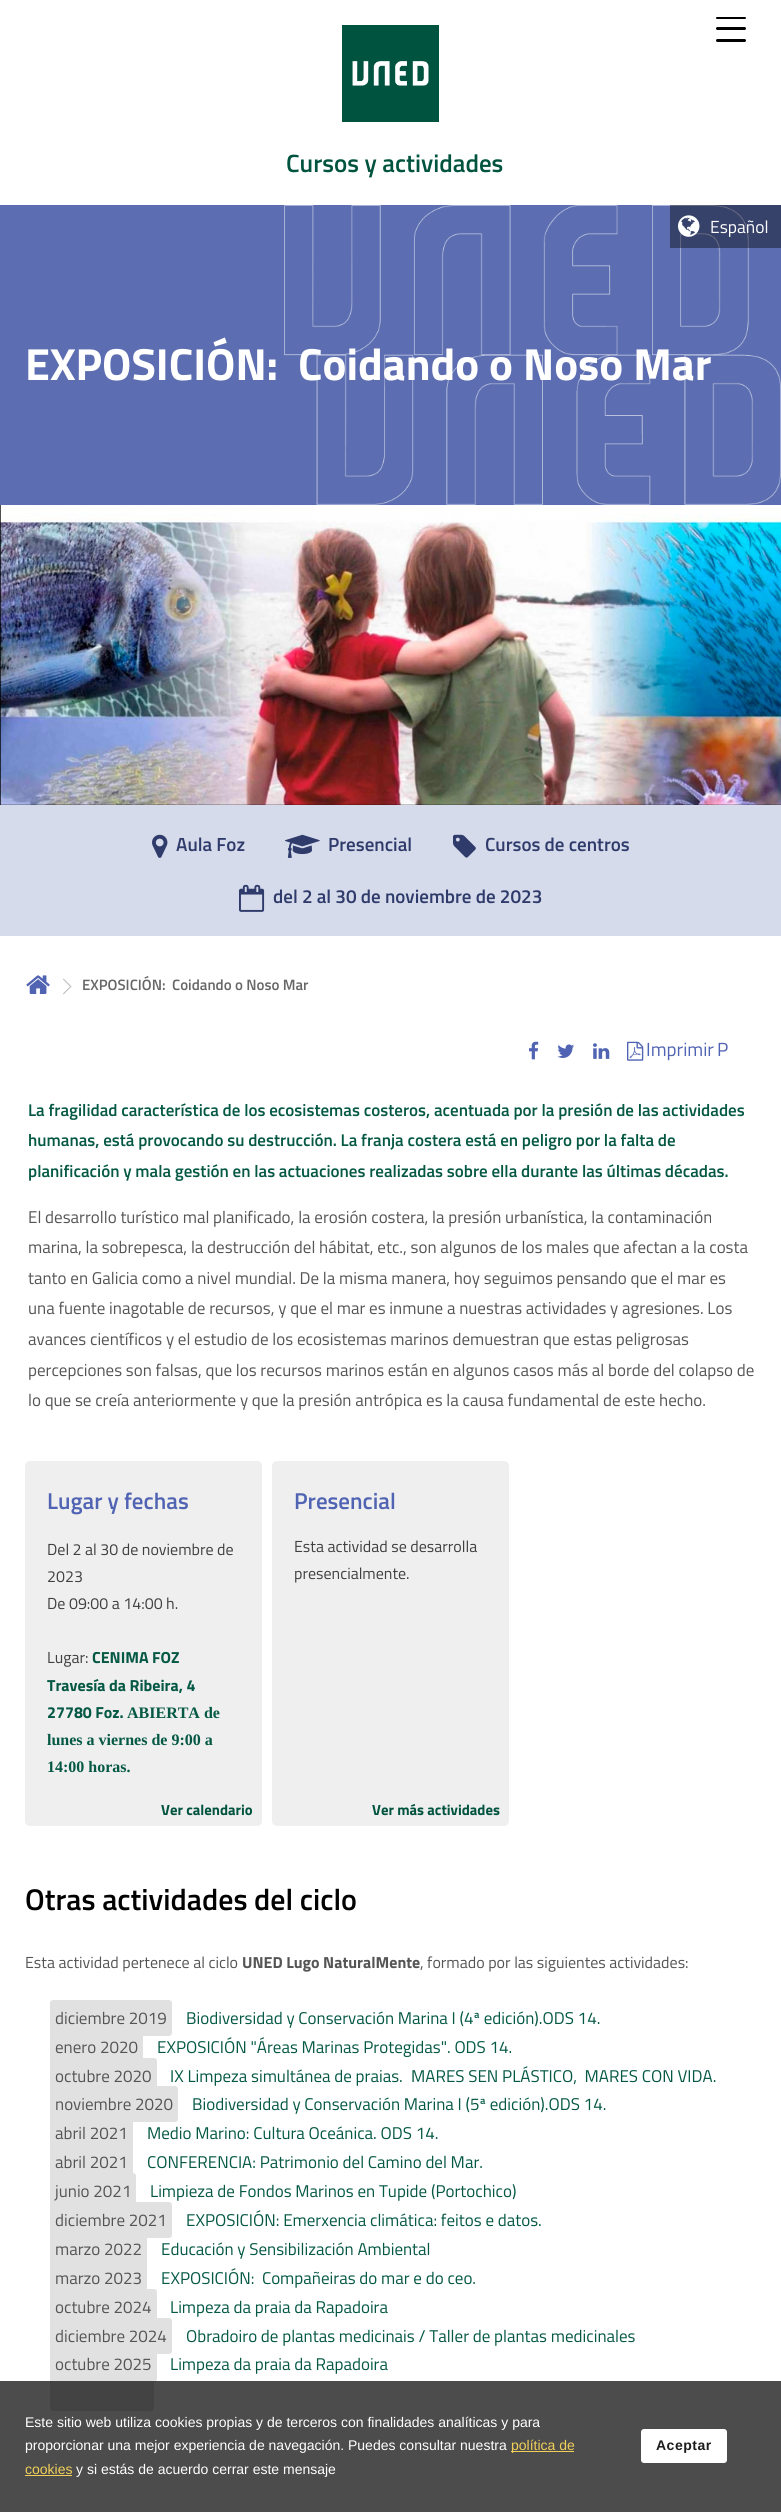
#include <cairo/cairo.h>
#include <math.h>
#include <stddef.h>

typedef struct { double x, y; const char *s; } line_t;
static cairo_t *cr;

static void rgb(unsigned color)
{
	cairo_set_source_rgb(cr, (color >> 16) / 255.0, (color >> 8 & 255) / 255.0, (color & 255) / 255.0);
}

static void tracked(double x, double y, const char *s, double letter, double word)
{
	cairo_move_to(cr, x, y);
	while (*s) {
		char ch[5] = {0};
		int n = 0;
		do ch[n++] = *s++; while ((*s & 0xC0) == 0x80);
		cairo_show_text(cr, ch);
		cairo_rel_move_to(cr, letter + word * (*ch == ' '), 0);
	}
}

static void rrect(double x, double y, double w, double h, double r)
{
	cairo_new_sub_path(cr);
	cairo_arc(cr, x + w - r, y + h - r, r, 0, M_PI / 2);
	cairo_arc(cr, x + r, y + h - r, r, M_PI / 2, M_PI);
	cairo_arc(cr, x + r, y + r, r, M_PI, 1.5 * M_PI);
	cairo_arc(cr, x + w - r, y + r, r, 1.5 * M_PI, 2 * M_PI);
	cairo_close_path(cr);
}

static void image(const char *path, double x, double y, double w, double h)
{
	cairo_surface_t *image = cairo_image_surface_create_from_png(path);
	cairo_save(cr);
	cairo_set_source_surface(cr, image, x, y);
	cairo_rectangle(cr, x, y, w, h);
	cairo_fill(cr);
	cairo_restore(cr);
	cairo_surface_destroy(image);
}

int main(void) {
	cairo_surface_t *surface = cairo_image_surface_create(CAIRO_FORMAT_RGB24, 781, 2512);
	cr = cairo_create(surface);
	cairo_font_options_t *options = cairo_font_options_create();
	cairo_font_options_set_hint_metrics(options, CAIRO_HINT_METRICS_OFF);
	cairo_font_options_set_hint_style(options, CAIRO_HINT_STYLE_NONE);
	cairo_set_font_options(cr, options);
	cairo_set_miter_limit(cr, 4);
	rgb(0xffffff);
	cairo_paint(cr);
	rgb(0x000000);
	rrect(716, 17, 30, 2, 1);
	cairo_fill(cr);
	rrect(716, 27, 30, 3, 1.5);
	cairo_fill(cr);
	rrect(716, 39, 30, 3, 1.5);
	cairo_fill(cr);
	image("img/1.png", 342, 25, 97, 97);
	rgb(0x5c6eb1);
	cairo_rectangle(cr, 0, 205, 781, 300);
	cairo_fill(cr);
	image("img/3.png", 0, 505, 781, 300);
	rgb(0xd6dbeb);
	cairo_rectangle(cr, 0, 805, 781, 131);
	cairo_fill(cr);
	image("img/4.png", 152, 834, 16, 24);
	image("img/5.png", 285, 834, 35, 24);
	image("img/6.png", 453, 834, 23, 24);
	image("img/7.png", 239, 884, 26, 28);
	image("img/9.png", 26, 975, 24, 19);
	rgb(0xbbbbbb);
	cairo_new_path(cr);
	cairo_move_to(cr, 63.5, 978.5);
	cairo_line_to(cr, 71.5, 986.5);
	cairo_line_to(cr, 70.5, 987);
	cairo_line_to(cr, 63, 979.5);
	cairo_close_path(cr);
	cairo_fill(cr);
	cairo_new_path(cr);
	cairo_move_to(cr, 70.5, 986);
	cairo_line_to(cr, 71.5, 986.5);
	cairo_line_to(cr, 63.5, 994.5);
	cairo_line_to(cr, 63, 993.5);
	cairo_close_path(cr);
	cairo_fill(cr);
	image("img/10.png", 529, 1041, 10, 19);
	image("img/11.png", 557, 1044, 17, 14);
	image("img/12.png", 593, 1043, 17, 16);
	image("img/13.png", 627, 1041, 17, 20);
	rgb(0xefefef);
	rrect(25, 1461, 237, 365, 5);
	cairo_fill(cr);
	rrect(272, 1461, 237, 365, 5);
	cairo_fill(cr);
	rgb(0xe1e1e1);
	rrect(50, 2000, 122, 36, 3);
	cairo_fill(cr);
	rrect(50, 2029, 93, 36, 3);
	cairo_fill(cr);
	rrect(50, 2058, 107, 36, 3);
	cairo_fill(cr);
	rrect(50, 2086, 128, 36, 3);
	cairo_fill(cr);
	rrect(50, 2115, 83, 36, 3);
	cairo_fill(cr);
	rrect(50, 2144, 83, 36, 3);
	cairo_fill(cr);
	rrect(50, 2173, 86, 36, 3);
	cairo_fill(cr);
	rrect(50, 2202, 122, 36, 3);
	cairo_fill(cr);
	rrect(50, 2231, 97, 36, 3);
	cairo_fill(cr);
	rrect(50, 2260, 97, 36, 3);
	cairo_fill(cr);
	rrect(50, 2289, 107, 36, 3);
	cairo_fill(cr);
	rrect(50, 2318, 122, 36, 3);
	cairo_fill(cr);
	rrect(50, 2346, 107, 36, 3);
	cairo_fill(cr);
	rrect(50, 2375, 104, 36, 3);
	cairo_fill(cr);
	cairo_set_source_rgba(cr, 0, 0, 0, 0.7);
	cairo_rectangle(cr, 0, 2381, 781, 131);
	cairo_fill(cr);
	rgb(0xf1d05a);
	cairo_rectangle(cr, 511, 2451, 63, 1);
	cairo_fill(cr);
	cairo_rectangle(cr, 25, 2475, 47, 1);
	cairo_fill(cr);
	rgb(0xffffff);
	rrect(641, 2429, 86, 34, 3);
	cairo_fill(cr);
	cairo_select_font_face(cr, "Titillium Web SemiBold", CAIRO_FONT_SLANT_NORMAL, CAIRO_FONT_WEIGHT_NORMAL);
	cairo_set_font_size(cr, 25);
	rgb(0x00533e);
	cairo_move_to(cr, 286, 172);
	cairo_show_text(cr, "Cursos y actividades");
	cairo_select_font_face(cr, "Titillium Web", CAIRO_FONT_SLANT_NORMAL, CAIRO_FONT_WEIGHT_BOLD);
	cairo_set_font_size(cr, 45);
	rgb(0xffffff);
	cairo_move_to(cr, 25, 380);
	cairo_show_text(cr, "EXPOSICIÓN:");
	cairo_move_to(cr, 298, 380);
	cairo_show_text(cr, "Coidando o Noso Mar");
	image("img/2.png", 284, 205, 497, 300);
	cairo_select_font_face(cr, "Titillium Web SemiBold", CAIRO_FONT_SLANT_NORMAL, CAIRO_FONT_WEIGHT_NORMAL);
	cairo_set_font_size(cr, 19);
	rgb(0x2f3b6b);
	{
		static const line_t items[] = {
			{176, 851, "Aula Foz"},
			{328, 851, "Presencial"},
			{485, 851, "Cursos de centros"},
			{273, 903, "del 2 al 30 de noviembre de 2023"},
		};
		for (size_t i = 0; i < sizeof items / sizeof *items; i++) {
			cairo_move_to(cr, items[i].x, items[i].y);
			cairo_show_text(cr, items[i].s);
		}
	}
	cairo_set_source_rgba(cr, 0, 0, 0, 0.4);
	cairo_rectangle(cr, 670, 205, 111, 43);
	cairo_fill(cr);
	image("img/8.png", 678, 215, 22, 22);
	cairo_select_font_face(cr, "Titillium Web", CAIRO_FONT_SLANT_NORMAL, CAIRO_FONT_WEIGHT_NORMAL);
	cairo_set_font_size(cr, 17.5);
	rgb(0xffffff);
	cairo_move_to(cr, 710, 233);
	cairo_show_text(cr, "Español");
	cairo_select_font_face(cr, "Titillium Web SemiBold", CAIRO_FONT_SLANT_NORMAL, CAIRO_FONT_WEIGHT_NORMAL);
	cairo_set_font_size(cr, 15);
	rgb(0x666666);
	cairo_move_to(cr, 82, 990);
	cairo_show_text(cr, "EXPOSICIÓN:");
	cairo_move_to(cr, 172, 990);
	cairo_show_text(cr, "Coidando o Noso Mar");
	cairo_select_font_face(cr, "Titillium Web", CAIRO_FONT_SLANT_NORMAL, CAIRO_FONT_WEIGHT_NORMAL);
	cairo_set_font_size(cr, 19);
	rgb(0x5164b3);
	tracked(646, 1056, "Imprimir P", 0, -1);
	cairo_select_font_face(cr, "Titillium Web SemiBold", CAIRO_FONT_SLANT_NORMAL, CAIRO_FONT_WEIGHT_NORMAL);
	cairo_set_font_size(cr, 17);
	rgb(0x045844);
	{
		static const line_t items[] = {
			{28, 1116, "La fragilidad característica de los ecosistemas costeros, acentuada por la presión de las actividades"},
			{28, 1146, "humanas, está provocando su destrucción. La franja costera está en peligro por la falta de"},
			{28, 1177, "planificación y mala gestión en las actuaciones realizadas sobre ella durante las últimas décadas."},
		};
		for (size_t i = 0; i < sizeof items / sizeof *items; i++) {
			cairo_move_to(cr, items[i].x, items[i].y);
			cairo_show_text(cr, items[i].s);
		}
	}
	cairo_select_font_face(cr, "Titillium Web", CAIRO_FONT_SLANT_NORMAL, CAIRO_FONT_WEIGHT_NORMAL);
	rgb(0x555555);
	{
		static const line_t items[] = {
			{28, 1223, "El desarrollo turístico mal planificado, la erosión costera, la presión urbanística, la contaminación"},
			{28, 1253, "marina, la sobrepesca, la destrucción del hábitat, etc., son algunos de los males que afectan a la costa"},
			{28, 1284, "tanto en Galicia como a nivel mundial. De la misma manera, hoy seguimos pensando que el mar es"},
			{28, 1314, "una fuente inagotable de recursos, y que el mar es inmune a nuestras actividades y agresiones. Los"},
			{28, 1345, "avances científicos y el estudio de los ecosistemas marinos demuestran que estas peligrosas"},
			{28, 1376, "percepciones son falsas, que los recursos marinos están en algunos casos más al borde del colapso de"},
			{28, 1406, "lo que se creía anteriormente y que la presión antrópica es la causa fundamental de este hecho."},
		};
		for (size_t i = 0; i < sizeof items / sizeof *items; i++) {
			cairo_move_to(cr, items[i].x, items[i].y);
			cairo_show_text(cr, items[i].s);
		}
	}
	cairo_select_font_face(cr, "Titillium Web SemiBold", CAIRO_FONT_SLANT_NORMAL, CAIRO_FONT_WEIGHT_NORMAL);
	cairo_set_font_size(cr, 23);
	rgb(0x5164b3);
	cairo_move_to(cr, 47, 1509);
	cairo_show_text(cr, "Lugar y fechas");
	cairo_select_font_face(cr, "Titillium Web", CAIRO_FONT_SLANT_NORMAL, CAIRO_FONT_WEIGHT_NORMAL);
	cairo_set_font_size(cr, 16);
	rgb(0x404040);
	{
		static const line_t items[] = {
			{47, 1555, "Del 2 al 30 de noviembre de"},
			{47, 1582, "2023"},
			{47, 1609, "De 09:00 a 14:00 h."},
			{47, 1663, "Lugar:"},
		};
		for (size_t i = 0; i < sizeof items / sizeof *items; i++) {
			cairo_move_to(cr, items[i].x, items[i].y);
			cairo_show_text(cr, items[i].s);
		}
	}
	cairo_select_font_face(cr, "Titillium Web", CAIRO_FONT_SLANT_NORMAL, CAIRO_FONT_WEIGHT_BOLD);
	rgb(0x045844);
	{
		static const line_t items[] = {
			{92, 1663, "CENIMA FOZ"},
			{47, 1691, "Travesía da Ribeira, 4"},
			{47, 1718, "27780 Foz."},
		};
		for (size_t i = 0; i < sizeof items / sizeof *items; i++) {
			cairo_move_to(cr, items[i].x, items[i].y);
			cairo_show_text(cr, items[i].s);
		}
	}
	cairo_select_font_face(cr, "Liberation Serif", CAIRO_FONT_SLANT_NORMAL, CAIRO_FONT_WEIGHT_BOLD);
	{
		static const line_t items[] = {
			{127, 1718, "ABIERTA de"},
			{47, 1745, "lunes a viernes de 9:00 a"},
			{47, 1772, "14:00 horas."},
		};
		for (size_t i = 0; i < sizeof items / sizeof *items; i++) {
			cairo_move_to(cr, items[i].x, items[i].y);
			cairo_show_text(cr, items[i].s);
		}
	}
	cairo_select_font_face(cr, "Titillium Web", CAIRO_FONT_SLANT_NORMAL, CAIRO_FONT_WEIGHT_BOLD);
	cairo_set_font_size(cr, 14.75);
	rgb(0x00533e);
	cairo_move_to(cr, 161, 1815);
	cairo_show_text(cr, "Ver calendario");
	cairo_select_font_face(cr, "Titillium Web SemiBold", CAIRO_FONT_SLANT_NORMAL, CAIRO_FONT_WEIGHT_NORMAL);
	cairo_set_font_size(cr, 23);
	rgb(0x5164b3);
	cairo_move_to(cr, 294, 1509);
	cairo_show_text(cr, "Presencial");
	cairo_select_font_face(cr, "Titillium Web", CAIRO_FONT_SLANT_NORMAL, CAIRO_FONT_WEIGHT_NORMAL);
	cairo_set_font_size(cr, 16);
	rgb(0x404040);
	cairo_move_to(cr, 294, 1552);
	cairo_show_text(cr, "Esta actividad se desarrolla");
	cairo_move_to(cr, 294, 1579);
	cairo_show_text(cr, "presencialmente.");
	cairo_select_font_face(cr, "Titillium Web", CAIRO_FONT_SLANT_NORMAL, CAIRO_FONT_WEIGHT_BOLD);
	cairo_set_font_size(cr, 14.75);
	rgb(0x00533e);
	cairo_move_to(cr, 372, 1815);
	cairo_show_text(cr, "Ver más actividades");
	cairo_select_font_face(cr, "Titillium Web SemiBold", CAIRO_FONT_SLANT_NORMAL, CAIRO_FONT_WEIGHT_NORMAL);
	cairo_set_font_size(cr, 30);
	rgb(0x000000);
	cairo_move_to(cr, 25, 1910);
	cairo_show_text(cr, "Otras actividades del ciclo");
	cairo_select_font_face(cr, "Titillium Web", CAIRO_FONT_SLANT_NORMAL, CAIRO_FONT_WEIGHT_NORMAL);
	cairo_set_font_size(cr, 16);
	rgb(0x555555);
	cairo_move_to(cr, 25, 1968);
	cairo_show_text(cr, "Esta actividad pertenece al ciclo");
	cairo_select_font_face(cr, "Titillium Web", CAIRO_FONT_SLANT_NORMAL, CAIRO_FONT_WEIGHT_BOLD);
	cairo_move_to(cr, 242, 1968);
	cairo_show_text(cr, "UNED Lugo NaturalMente");
	cairo_select_font_face(cr, "Titillium Web", CAIRO_FONT_SLANT_NORMAL, CAIRO_FONT_WEIGHT_NORMAL);
	cairo_move_to(cr, 420, 1968);
	cairo_show_text(cr, ", formado por las siguientes actividades:");
	cairo_set_font_size(cr, 17);
	cairo_move_to(cr, 55, 2024);
	cairo_show_text(cr, "diciembre 2019");
	rgb(0x045844);
	cairo_move_to(cr, 186, 2024);
	cairo_show_text(cr, "Biodiversidad y Conservación Marina I (4ª edición).ODS 14.");
	rgb(0x555555);
	cairo_move_to(cr, 55, 2053);
	cairo_show_text(cr, "enero 2020");
	rgb(0x045844);
	cairo_move_to(cr, 157, 2053);
	cairo_show_text(cr, "EXPOSICIÓN \"Áreas Marinas Protegidas\". ODS 14.");
	rgb(0x555555);
	cairo_move_to(cr, 55, 2082);
	cairo_show_text(cr, "octubre 2020");
	rgb(0x045844);
	cairo_move_to(cr, 170, 2082);
	cairo_show_text(cr, "IX Limpeza simultánea de praias.");
	cairo_move_to(cr, 411, 2082);
	cairo_show_text(cr, "MARES SEN PLÁSTICO,  MARES CON VIDA.");
	rgb(0x555555);
	cairo_move_to(cr, 55, 2110);
	cairo_show_text(cr, "noviembre 2020");
	rgb(0x045844);
	cairo_move_to(cr, 192, 2110);
	cairo_show_text(cr, "Biodiversidad y Conservación Marina I (5ª edición).ODS 14.");
	rgb(0x555555);
	cairo_move_to(cr, 55, 2139);
	cairo_show_text(cr, "abril 2021");
	rgb(0x045844);
	cairo_move_to(cr, 147, 2139);
	cairo_show_text(cr, "Medio Marino: Cultura Oceánica. ODS 14.");
	rgb(0x555555);
	cairo_move_to(cr, 55, 2168);
	cairo_show_text(cr, "abril 2021");
	rgb(0x045844);
	cairo_move_to(cr, 147, 2168);
	cairo_show_text(cr, "CONFERENCIA: Patrimonio del Camino del Mar.");
	rgb(0x555555);
	cairo_move_to(cr, 55, 2197);
	cairo_show_text(cr, "junio 2021");
	rgb(0x045844);
	cairo_move_to(cr, 150, 2197);
	cairo_show_text(cr, "Limpieza de Fondos Marinos en Tupide (Portochico)");
	rgb(0x555555);
	cairo_move_to(cr, 55, 2226);
	cairo_show_text(cr, "diciembre 2021");
	rgb(0x045844);
	cairo_move_to(cr, 186, 2226);
	cairo_show_text(cr, "EXPOSICIÓN: Emerxencia climática: feitos e datos.");
	rgb(0x555555);
	cairo_move_to(cr, 55, 2255);
	cairo_show_text(cr, "marzo 2022");
	rgb(0x045844);
	cairo_move_to(cr, 161, 2255);
	cairo_show_text(cr, "Educación y Sensibilización Ambiental");
	rgb(0x555555);
	cairo_move_to(cr, 55, 2284);
	cairo_show_text(cr, "marzo 2023");
	rgb(0x045844);
	cairo_move_to(cr, 161, 2284);
	cairo_show_text(cr, "EXPOSICIÓN:  Compañeiras do mar e do ceo.");
	rgb(0x555555);
	cairo_move_to(cr, 55, 2313);
	cairo_show_text(cr, "octubre 2024");
	rgb(0x045844);
	cairo_move_to(cr, 170, 2313);
	cairo_show_text(cr, "Limpeza da praia da Rapadoira");
	rgb(0x555555);
	cairo_move_to(cr, 55, 2342);
	cairo_show_text(cr, "diciembre 2024");
	rgb(0x045844);
	cairo_move_to(cr, 186, 2342);
	cairo_show_text(cr, "Obradoiro de plantas medicinais / Taller de plantas medicinales");
	rgb(0x555555);
	cairo_move_to(cr, 55, 2370);
	cairo_show_text(cr, "octubre 2025");
	rgb(0x045844);
	cairo_move_to(cr, 170, 2370);
	cairo_show_text(cr, "Limpeza da praia da Rapadoira");
	cairo_select_font_face(cr, "Liberation Sans", CAIRO_FONT_SLANT_NORMAL, CAIRO_FONT_WEIGHT_NORMAL);
	cairo_set_font_size(cr, 14);
	rgb(0xffffff);
	cairo_move_to(cr, 25, 2427);
	cairo_show_text(cr, "Este sitio web utiliza cookies propias y de terceros con finalidades analíticas y para");
	cairo_move_to(cr, 25, 2450);
	cairo_show_text(cr, "proporcionar una mejor experiencia de navegación. Puedes consultar nuestra");
	rgb(0xf1d05a);
	cairo_move_to(cr, 511, 2450);
	cairo_show_text(cr, "política de");
	cairo_move_to(cr, 25, 2474);
	cairo_show_text(cr, "cookies");
	rgb(0xffffff);
	cairo_move_to(cr, 76, 2474);
	cairo_show_text(cr, "y si estás de acuerdo cerrar este mensaje");
	cairo_select_font_face(cr, "Liberation Sans", CAIRO_FONT_SLANT_NORMAL, CAIRO_FONT_WEIGHT_BOLD);
	rgb(0x1d1d1d);
	tracked(656, 2450, "Aceptar", 0.5, 0);
	cairo_surface_write_to_png(surface, "page.png");
	cairo_font_options_destroy(options);
	cairo_destroy(cr);
	cairo_surface_destroy(surface);
	return 0;
}
